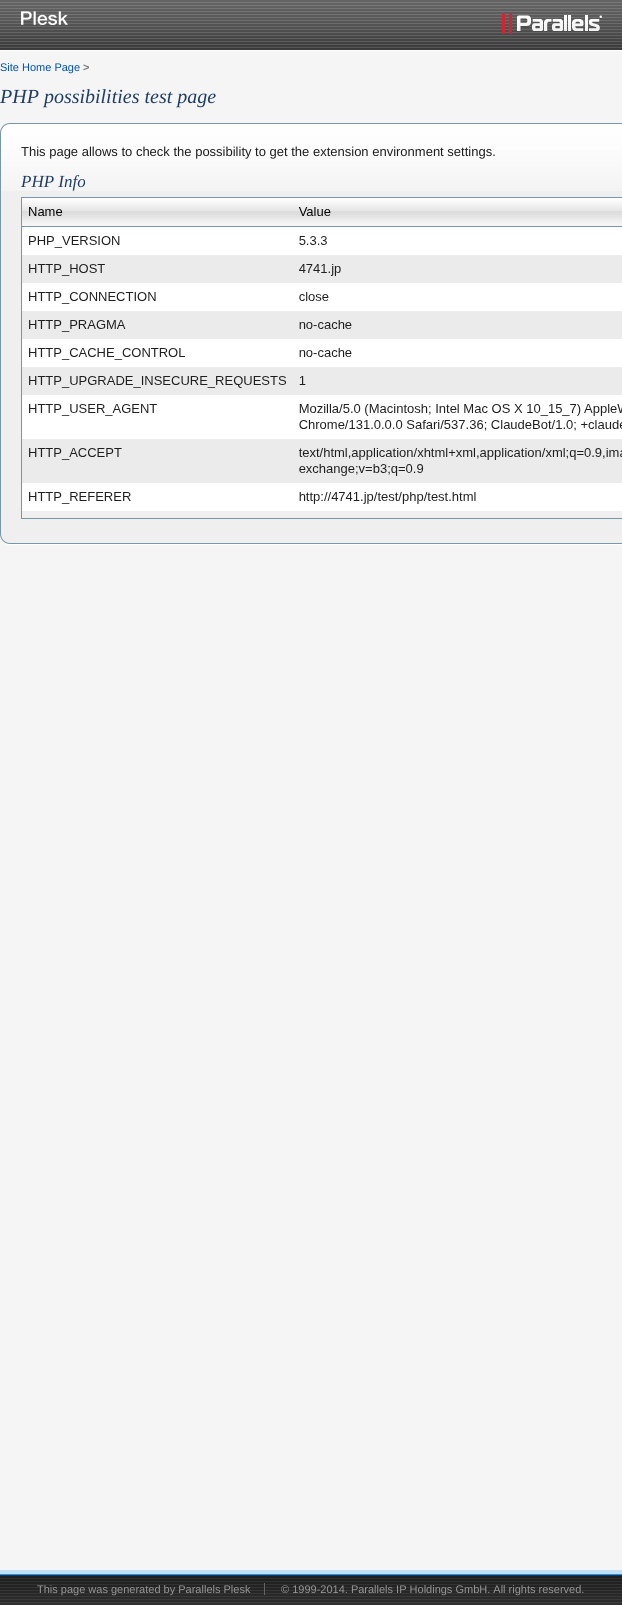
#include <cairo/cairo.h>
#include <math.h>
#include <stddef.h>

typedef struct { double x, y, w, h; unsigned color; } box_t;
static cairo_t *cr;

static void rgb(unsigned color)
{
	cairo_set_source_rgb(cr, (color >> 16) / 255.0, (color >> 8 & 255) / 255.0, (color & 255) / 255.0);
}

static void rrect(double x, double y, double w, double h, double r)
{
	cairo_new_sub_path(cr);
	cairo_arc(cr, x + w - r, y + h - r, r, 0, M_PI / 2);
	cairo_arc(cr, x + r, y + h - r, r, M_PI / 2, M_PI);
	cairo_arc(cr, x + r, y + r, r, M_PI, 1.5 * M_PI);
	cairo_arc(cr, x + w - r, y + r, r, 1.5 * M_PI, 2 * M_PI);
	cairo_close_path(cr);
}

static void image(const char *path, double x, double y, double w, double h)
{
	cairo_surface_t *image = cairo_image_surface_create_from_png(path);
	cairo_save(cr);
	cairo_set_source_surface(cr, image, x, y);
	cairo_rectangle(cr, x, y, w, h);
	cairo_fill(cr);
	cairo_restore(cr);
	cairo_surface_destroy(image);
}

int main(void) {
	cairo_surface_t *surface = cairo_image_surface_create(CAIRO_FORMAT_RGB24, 622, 1605);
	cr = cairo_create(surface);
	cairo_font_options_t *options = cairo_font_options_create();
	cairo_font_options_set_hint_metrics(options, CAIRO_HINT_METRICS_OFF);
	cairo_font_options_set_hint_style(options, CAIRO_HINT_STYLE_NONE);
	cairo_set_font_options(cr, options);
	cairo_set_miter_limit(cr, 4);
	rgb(0xf5f5f5);
	cairo_paint(cr);
	rgb(0x646464);
	cairo_rectangle(cr, 0, 0, 622, 2);
	cairo_fill(cr);
	image("img/1.png", 0, 2, 622, 48);
	rgb(0xffffff);
	cairo_rectangle(cr, 0, 50, 622, 1);
	cairo_fill(cr);
	image("img/2.png", 21, 11, 47, 14);
	image("img/3.png", 502, 13, 100, 21);
	cairo_new_path(cr);
	cairo_move_to(cr, 0, 534);
	cairo_curve_to(cr, 0, 540, 4, 545, 10, 545);
	cairo_line_to(cr, 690, 545);
	cairo_curve_to(cr, 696, 545, 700, 540, 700, 534);
	cairo_curve_to(cr, 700, 540, 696, 544, 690, 544);
	cairo_line_to(cr, 10, 544);
	cairo_curve_to(cr, 4, 544, 0, 540, 0, 534);
	cairo_close_path(cr);
	cairo_fill(cr);
	rgb(0xefefef);
	rrect(1, 124, 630, 419, 9);
	cairo_fill(cr);
	image("img/4.png", 1, 124, 621, 67);
	rgb(0xffffff);
	cairo_new_path(cr);
	cairo_move_to(cr, 10, 125);
	cairo_line_to(cr, 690, 125);
	cairo_curve_to(cr, 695, 125, 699, 129, 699, 134);
	cairo_curve_to(cr, 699, 129, 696, 124, 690, 124);
	cairo_line_to(cr, 10, 124);
	cairo_curve_to(cr, 4, 124, 1, 129, 1, 134);
	cairo_curve_to(cr, 1, 129, 5, 125, 10, 125);
	cairo_close_path(cr);
	cairo_fill(cr);
	rrect(0.5, 123.5, 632, 420, 9.5);
	rgb(0x7896aa);
	cairo_set_line_width(cr, 1);
	cairo_stroke(cr);
	cairo_rectangle(cr, 21.5, 197.5, 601, 321);
	cairo_stroke(cr);
	image("img/5.png", 22, 198, 600, 313);
	rgb(0x313131);
	cairo_rectangle(cr, 0, 1603, 622, 2);
	cairo_fill(cr);
	image("img/6.png", 0, 1575, 622, 28);
	{
		static const box_t items[] = {
			{0, 1574, 622, 1, 0x1594ff},
			{0, 1570, 622, 4, 0xbce1f8},
			{264, 1583, 1, 12, 0x646464},
		};
		for (size_t i = 0; i < sizeof items / sizeof *items; i++) {
			rgb(items[i].color);
			cairo_rectangle(cr, items[i].x, items[i].y, items[i].w, items[i].h);
			cairo_fill(cr);
		}
	}
	cairo_select_font_face(cr, "Liberation Sans", CAIRO_FONT_SLANT_NORMAL, CAIRO_FONT_WEIGHT_NORMAL);
	cairo_set_font_size(cr, 11);
	rgb(0x0050b4);
	cairo_move_to(cr, 0, 71);
	cairo_show_text(cr, "Site Home Page");
	cairo_select_font_face(cr, "Liberation Sans", CAIRO_FONT_SLANT_NORMAL, CAIRO_FONT_WEIGHT_BOLD);
	rgb(0x787878);
	cairo_move_to(cr, 83, 71);
	cairo_show_text(cr, ">");
	cairo_select_font_face(cr, "Liberation Serif", CAIRO_FONT_SLANT_ITALIC, CAIRO_FONT_WEIGHT_NORMAL);
	cairo_set_font_size(cr, 20);
	rgb(0x1e3c64);
	cairo_move_to(cr, 0, 103);
	cairo_show_text(cr, "PHP possibilities test page");
	cairo_select_font_face(cr, "Liberation Sans", CAIRO_FONT_SLANT_NORMAL, CAIRO_FONT_WEIGHT_NORMAL);
	cairo_set_font_size(cr, 13);
	rgb(0x1e1e1e);
	cairo_move_to(cr, 21, 156);
	cairo_show_text(cr, "This page allows to check the possibility to get the extension environment settings.");
	cairo_select_font_face(cr, "Liberation Serif", CAIRO_FONT_SLANT_ITALIC, CAIRO_FONT_WEIGHT_NORMAL);
	cairo_set_font_size(cr, 17);
	rgb(0x1e3c64);
	cairo_move_to(cr, 21, 187);
	cairo_show_text(cr, "PHP Info");
	cairo_select_font_face(cr, "Liberation Sans", CAIRO_FONT_SLANT_NORMAL, CAIRO_FONT_WEIGHT_NORMAL);
	cairo_set_font_size(cr, 11);
	rgb(0x969696);
	cairo_move_to(cr, 37, 1593);
	cairo_show_text(cr, "This page was generated by Parallels Plesk");
	cairo_move_to(cr, 281, 1593);
	cairo_show_text(cr, "© 1999-2014. Parallels IP Holdings GmbH. All rights reserved.");
	cairo_surface_write_to_png(surface, "page.png");
	cairo_font_options_destroy(options);
	cairo_destroy(cr);
	cairo_surface_destroy(surface);
	return 0;
}
